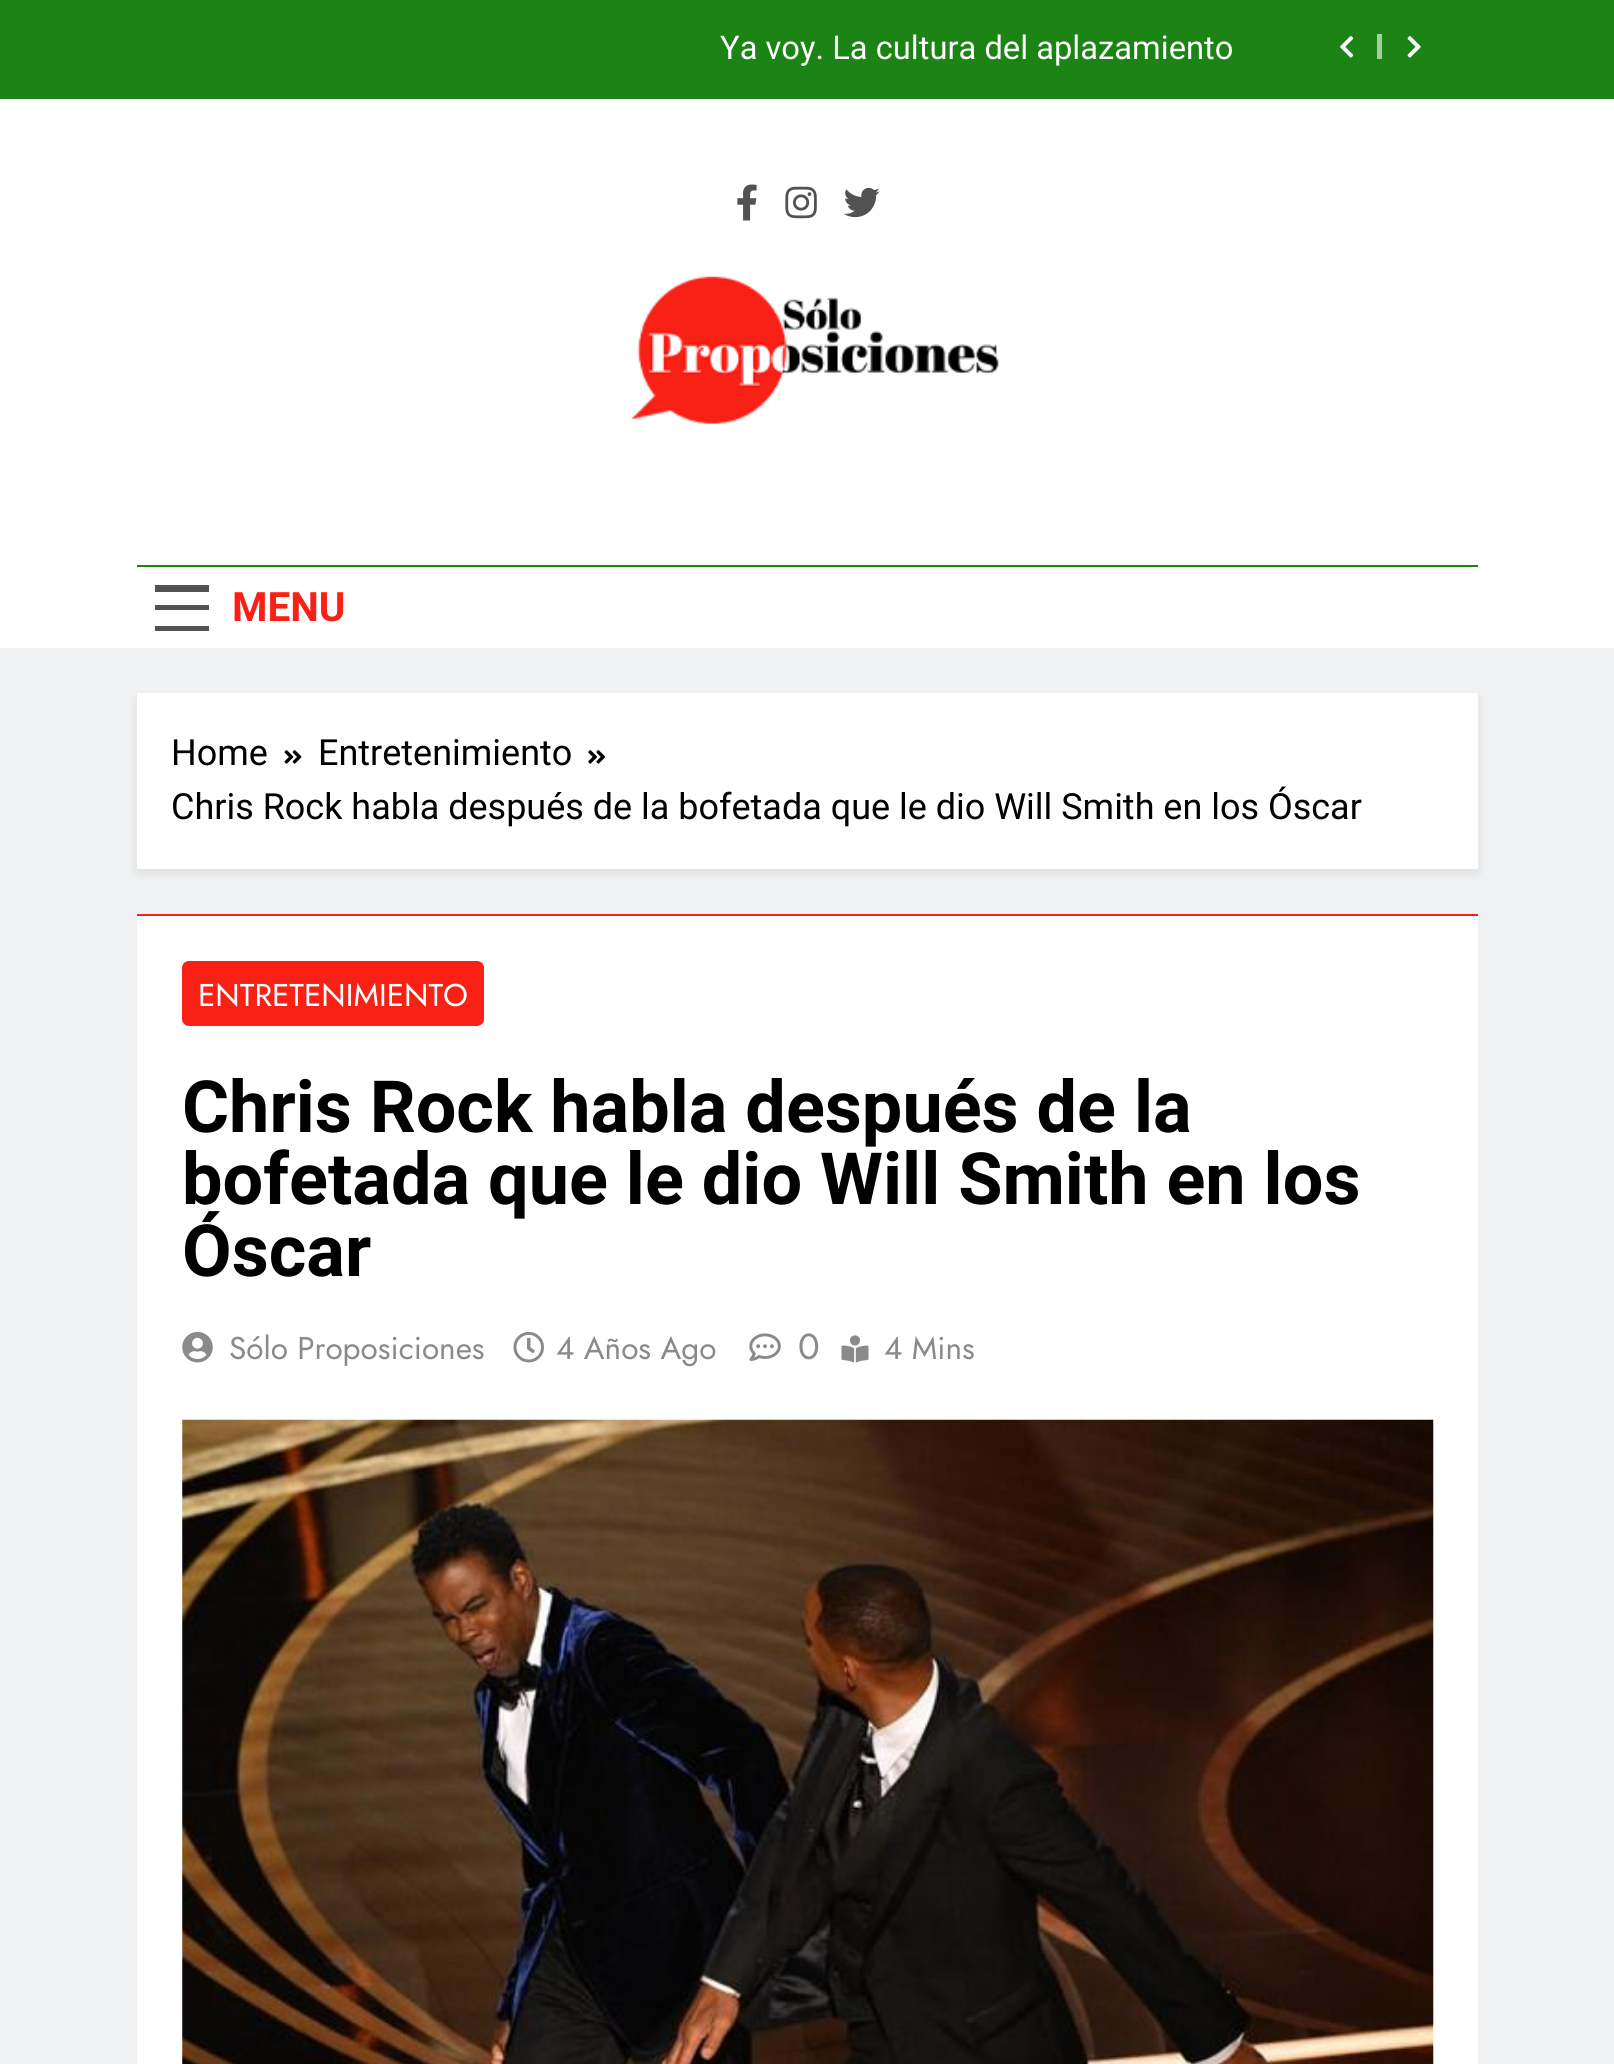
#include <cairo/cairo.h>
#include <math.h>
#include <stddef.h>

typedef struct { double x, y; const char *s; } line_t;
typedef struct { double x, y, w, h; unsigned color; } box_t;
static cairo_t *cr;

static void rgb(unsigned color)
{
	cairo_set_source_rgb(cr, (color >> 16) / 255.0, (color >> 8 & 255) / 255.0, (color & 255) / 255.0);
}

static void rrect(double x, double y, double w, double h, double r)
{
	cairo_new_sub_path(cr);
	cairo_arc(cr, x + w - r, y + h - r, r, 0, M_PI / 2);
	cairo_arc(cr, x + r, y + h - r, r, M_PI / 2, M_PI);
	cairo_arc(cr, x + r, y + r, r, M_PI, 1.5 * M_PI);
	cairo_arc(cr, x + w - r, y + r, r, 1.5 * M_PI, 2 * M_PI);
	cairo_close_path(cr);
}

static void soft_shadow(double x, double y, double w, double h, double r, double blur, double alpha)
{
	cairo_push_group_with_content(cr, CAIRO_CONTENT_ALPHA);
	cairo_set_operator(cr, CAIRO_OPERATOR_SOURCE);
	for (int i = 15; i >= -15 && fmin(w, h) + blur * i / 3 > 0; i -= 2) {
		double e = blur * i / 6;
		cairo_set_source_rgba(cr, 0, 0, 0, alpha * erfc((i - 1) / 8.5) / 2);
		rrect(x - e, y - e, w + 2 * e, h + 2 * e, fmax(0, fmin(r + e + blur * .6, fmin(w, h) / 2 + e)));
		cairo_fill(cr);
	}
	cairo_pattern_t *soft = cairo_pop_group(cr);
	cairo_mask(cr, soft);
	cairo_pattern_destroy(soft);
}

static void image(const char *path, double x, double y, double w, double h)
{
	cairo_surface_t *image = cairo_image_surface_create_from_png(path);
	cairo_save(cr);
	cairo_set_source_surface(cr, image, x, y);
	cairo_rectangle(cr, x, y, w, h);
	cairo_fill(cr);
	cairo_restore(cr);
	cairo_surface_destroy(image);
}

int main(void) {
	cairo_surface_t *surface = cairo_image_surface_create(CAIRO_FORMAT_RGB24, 1614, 2064);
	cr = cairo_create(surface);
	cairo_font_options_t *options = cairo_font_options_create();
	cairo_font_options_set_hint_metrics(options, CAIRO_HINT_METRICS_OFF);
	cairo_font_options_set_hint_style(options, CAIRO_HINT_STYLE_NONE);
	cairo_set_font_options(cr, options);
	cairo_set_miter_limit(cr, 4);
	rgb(0xf0f1f2);
	cairo_paint(cr);
	rgb(0x1b8415);
	cairo_rectangle(cr, 0, 0, 1614, 99);
	cairo_fill(cr);
	image("img/1.png", 1340, 36, 14, 22);
	rgb(0xa4cea1);
	cairo_rectangle(cr, 1377, 34, 5, 25);
	cairo_fill(cr);
	image("img/2.png", 1407, 36, 14, 22);
	rgb(0xffffff);
	cairo_rectangle(cr, 0, 99, 1614, 549);
	cairo_fill(cr);
	image("img/3.png", 737, 184, 20, 37);
	image("img/4.png", 785, 186, 32, 33);
	image("img/5.png", 843, 187, 37, 31);
	image("img/6.png", 630, 276, 369, 148);
	{
		static const box_t items[] = {
			{137, 565, 1341, 2, 0x1b8415},
			{155, 585, 54, 7, 0x525252},
			{155, 605, 54, 5, 0x525252},
			{155, 626, 54, 5, 0x525252},
		};
		for (size_t i = 0; i < sizeof items / sizeof *items; i++) {
			rgb(items[i].color);
			cairo_rectangle(cr, items[i].x, items[i].y, items[i].w, items[i].h);
			cairo_fill(cr);
		}
	}
	rgb(0x000000);
	soft_shadow(137, 698, 1341, 175, 0, 4.5, 0.08);
	rgb(0xffffff);
	cairo_rectangle(cr, 137, 693, 1341, 176);
	cairo_fill(cr);
	image("img/7.png", 284, 750, 18, 14);
	image("img/8.png", 588, 750, 18, 14);
	cairo_rectangle(cr, 137, 916, 1341, 1148);
	cairo_fill(cr);
	rgb(0xf92016);
	cairo_rectangle(cr, 137, 914, 1341, 2);
	cairo_fill(cr);
	rrect(182, 961, 302, 65, 7);
	cairo_fill(cr);
	image("img/9.png", 182, 1331, 31, 32);
	image("img/10.png", 513, 1331, 31, 32);
	image("img/11.png", 749, 1333, 32, 28);
	image("img/12.png", 841, 1335, 28, 28);
	image("img/13.png", 182, 1419, 1252, 645);
	cairo_select_font_face(cr, "Roboto", CAIRO_FONT_SLANT_NORMAL, CAIRO_FONT_WEIGHT_NORMAL);
	cairo_set_font_size(cr, 32.7);
	rgb(0xffffff);
	cairo_move_to(cr, 720, 59);
	cairo_show_text(cr, "Ya voy. La cultura del aplazamiento");
	cairo_select_font_face(cr, "Roboto", CAIRO_FONT_SLANT_NORMAL, CAIRO_FONT_WEIGHT_BOLD);
	cairo_set_font_size(cr, 40.5);
	rgb(0xf92016);
	cairo_move_to(cr, 232, 621);
	cairo_show_text(cr, "MENU");
	cairo_select_font_face(cr, "Roboto", CAIRO_FONT_SLANT_NORMAL, CAIRO_FONT_WEIGHT_NORMAL);
	cairo_set_font_size(cr, 36);
	rgb(0x000000);
	{
		static const line_t items[] = {
			{171, 765, "Home"},
			{318, 765, "Entretenimiento"},
			{171, 819, "Chris Rock habla después de la bofetada que le dio Will Smith en los Óscar"},
		};
		for (size_t i = 0; i < sizeof items / sizeof *items; i++) {
			cairo_move_to(cr, items[i].x, items[i].y);
			cairo_show_text(cr, items[i].s);
		}
	}
	cairo_select_font_face(cr, "Jost", CAIRO_FONT_SLANT_NORMAL, CAIRO_FONT_WEIGHT_NORMAL);
	cairo_set_font_size(cr, 31.5);
	rgb(0xffffff);
	cairo_move_to(cr, 198, 1006);
	cairo_show_text(cr, "ENTRETENIMIENTO");
	cairo_select_font_face(cr, "Roboto", CAIRO_FONT_SLANT_NORMAL, CAIRO_FONT_WEIGHT_BOLD);
	cairo_set_font_size(cr, 72);
	rgb(0x000000);
	{
		static const line_t items[] = {
			{182, 1132, "Chris Rock habla después de la"},
			{182, 1204, "bofetada que le dio Will Smith en los"},
			{182, 1276, "Óscar"},
		};
		for (size_t i = 0; i < sizeof items / sizeof *items; i++) {
			cairo_move_to(cr, items[i].x, items[i].y);
			cairo_show_text(cr, items[i].s);
		}
	}
	cairo_select_font_face(cr, "Jost", CAIRO_FONT_SLANT_NORMAL, CAIRO_FONT_WEIGHT_NORMAL);
	cairo_set_font_size(cr, 31.5);
	rgb(0x8a8a8c);
	cairo_move_to(cr, 229, 1359);
	cairo_show_text(cr, "Sólo Proposiciones");
	cairo_move_to(cr, 556, 1359);
	cairo_show_text(cr, "4 Años Ago");
	cairo_set_font_size(cr, 36);
	cairo_move_to(cr, 798, 1359);
	cairo_show_text(cr, "0");
	cairo_set_font_size(cr, 31.5);
	cairo_move_to(cr, 884, 1359);
	cairo_show_text(cr, "4 Mins");
	cairo_surface_write_to_png(surface, "page.png");
	cairo_font_options_destroy(options);
	cairo_destroy(cr);
	cairo_surface_destroy(surface);
	return 0;
}
